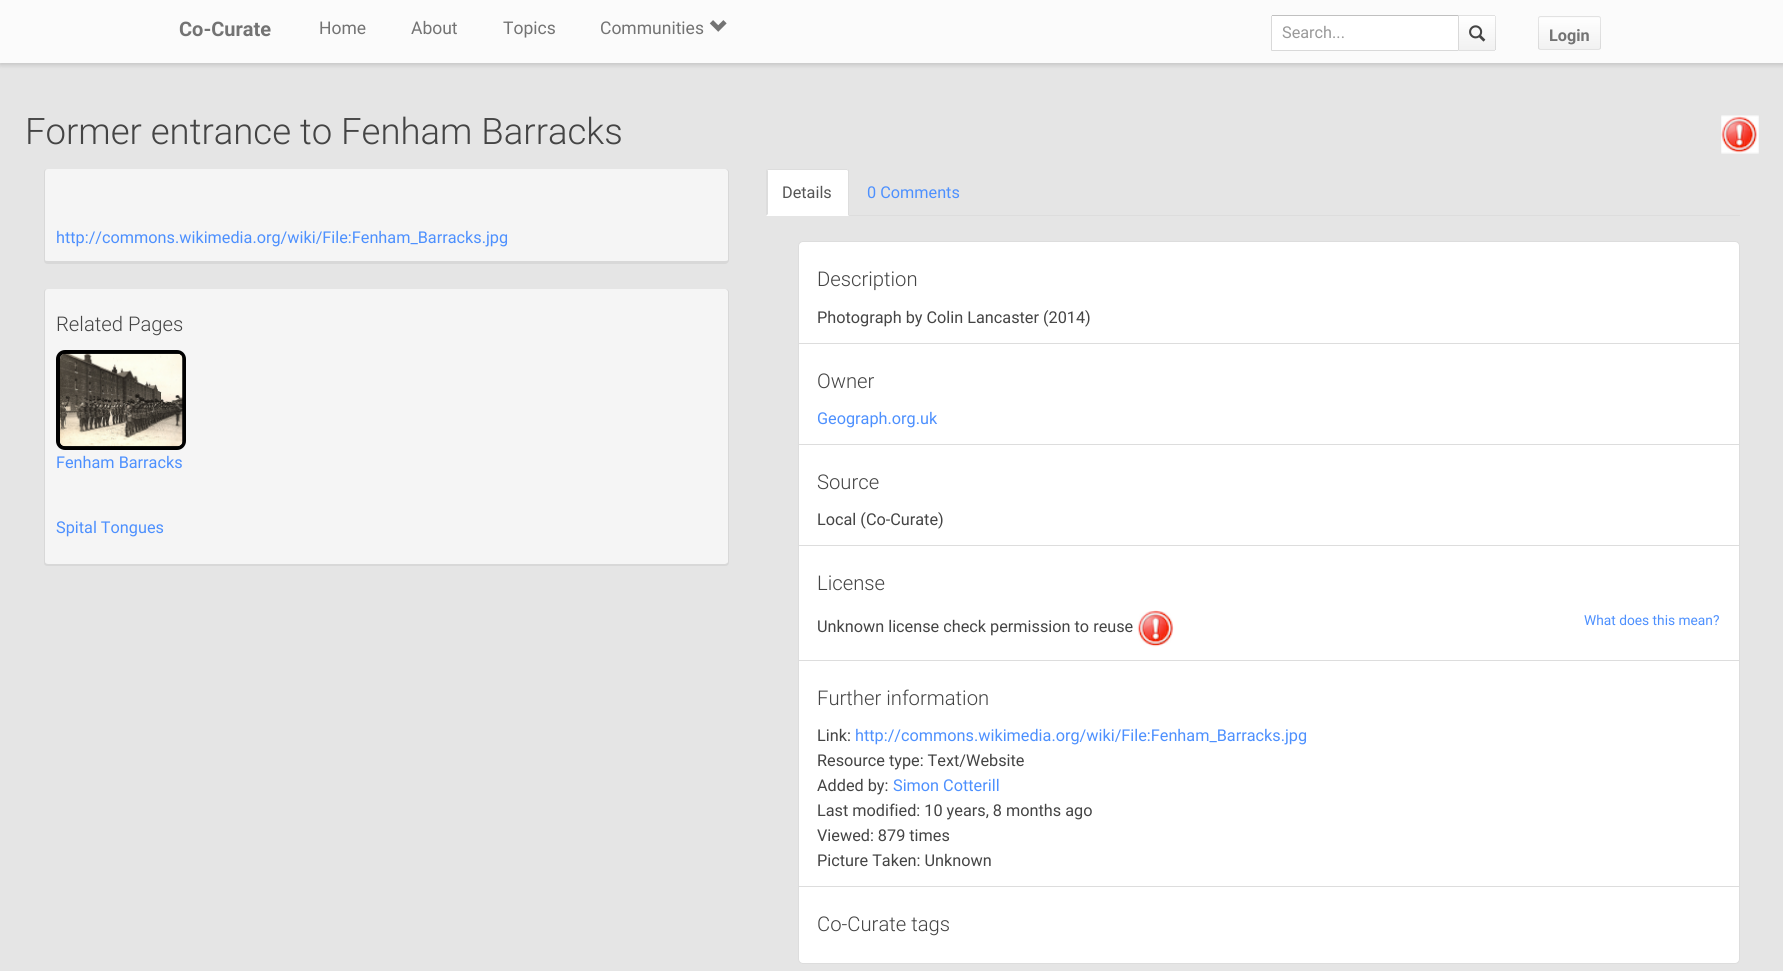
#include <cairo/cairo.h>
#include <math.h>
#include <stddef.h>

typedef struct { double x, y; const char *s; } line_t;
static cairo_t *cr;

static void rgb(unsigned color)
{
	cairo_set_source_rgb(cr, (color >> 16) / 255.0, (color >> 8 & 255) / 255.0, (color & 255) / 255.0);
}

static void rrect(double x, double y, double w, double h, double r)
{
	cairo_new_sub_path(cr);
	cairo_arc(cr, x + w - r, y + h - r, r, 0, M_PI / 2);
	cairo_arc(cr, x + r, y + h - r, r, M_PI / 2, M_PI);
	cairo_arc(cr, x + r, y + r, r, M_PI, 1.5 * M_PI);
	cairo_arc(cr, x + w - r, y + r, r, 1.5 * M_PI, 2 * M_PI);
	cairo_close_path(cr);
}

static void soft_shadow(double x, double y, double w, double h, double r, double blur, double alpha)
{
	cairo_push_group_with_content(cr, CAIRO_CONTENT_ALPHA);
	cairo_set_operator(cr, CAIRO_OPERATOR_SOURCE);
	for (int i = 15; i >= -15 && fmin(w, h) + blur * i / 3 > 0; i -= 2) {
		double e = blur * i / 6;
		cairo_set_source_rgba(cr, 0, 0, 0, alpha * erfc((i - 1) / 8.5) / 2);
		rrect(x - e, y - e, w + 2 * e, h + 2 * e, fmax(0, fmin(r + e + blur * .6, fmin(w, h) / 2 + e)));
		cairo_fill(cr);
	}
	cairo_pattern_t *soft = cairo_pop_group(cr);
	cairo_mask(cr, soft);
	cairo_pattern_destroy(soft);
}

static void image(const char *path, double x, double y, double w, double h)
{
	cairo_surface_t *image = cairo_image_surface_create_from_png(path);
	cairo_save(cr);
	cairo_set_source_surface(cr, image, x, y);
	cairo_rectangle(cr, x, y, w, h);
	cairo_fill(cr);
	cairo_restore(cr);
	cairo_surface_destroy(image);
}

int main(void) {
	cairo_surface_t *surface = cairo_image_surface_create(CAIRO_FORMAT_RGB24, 1783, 971);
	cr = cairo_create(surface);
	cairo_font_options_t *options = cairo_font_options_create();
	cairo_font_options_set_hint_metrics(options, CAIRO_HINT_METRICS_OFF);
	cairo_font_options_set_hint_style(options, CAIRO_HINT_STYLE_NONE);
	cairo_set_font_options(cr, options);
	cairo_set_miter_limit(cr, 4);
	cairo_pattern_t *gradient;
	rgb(0xe5e5e5);
	cairo_paint(cr);
	rgb(0x000000);
	soft_shadow(0, 3, 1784, 62, 0, 2.5, 0.15);
	rgb(0xfbfbfb);
	cairo_rectangle(cr, 0, 0, 1783, 63);
	cairo_fill(cr);
	image("img/1.png", 709, 20, 18, 12);
	rgb(0xffffff);
	cairo_new_path(cr);
	cairo_move_to(cr, 1272, 15);
	cairo_line_to(cr, 1459, 15);
	cairo_line_to(cr, 1459, 51);
	cairo_line_to(cr, 1272, 51);
	cairo_curve_to(cr, 1271.5, 51, 1271, 50.5, 1271, 50);
	cairo_line_to(cr, 1271, 16);
	cairo_curve_to(cr, 1271, 15.5, 1271.5, 15, 1272, 15);
	cairo_close_path(cr);
	cairo_fill(cr);
	rgb(0xc0c0c0);
	cairo_new_path(cr);
	cairo_move_to(cr, 1272, 15);
	cairo_line_to(cr, 1272, 16);
	cairo_line_to(cr, 1458, 16);
	cairo_line_to(cr, 1459, 15);
	cairo_close_path(cr);
	cairo_fill(cr);
	rgb(0xd9d9d9);
	cairo_new_path(cr);
	cairo_move_to(cr, 1459, 15);
	cairo_line_to(cr, 1459, 51);
	cairo_line_to(cr, 1457.5, 50);
	cairo_line_to(cr, 1458, 50);
	cairo_line_to(cr, 1458, 16);
	cairo_close_path(cr);
	cairo_fill(cr);
	cairo_rectangle(cr, 1272, 50, 186, 1);
	cairo_fill(cr);
	cairo_new_path(cr);
	cairo_move_to(cr, 1272, 16);
	cairo_line_to(cr, 1272, 50);
	cairo_line_to(cr, 1272.5, 50);
	cairo_line_to(cr, 1271.5, 51);
	cairo_line_to(cr, 1271, 50.5);
	cairo_line_to(cr, 1271, 16);
	cairo_line_to(cr, 1271.5, 15.5);
	cairo_close_path(cr);
	cairo_fill(cr);
	gradient = cairo_pattern_create_linear(1477, 16, 1477, 50);
	cairo_pattern_add_color_stop_rgba(gradient, 0, 1, 1, 1, 1);
	cairo_pattern_add_color_stop_rgba(gradient, 1, 0.945, 0.945, 0.945, 1);
	cairo_set_source(cr, gradient);
	cairo_pattern_destroy(gradient);
	cairo_rectangle(cr, 1459, 16, 37, 34);
	cairo_fill(cr);
	rgb(0xe0e0e0);
	cairo_rectangle(cr, 1459, 15, 36, 1);
	cairo_fill(cr);
	cairo_set_source_rgba(cr, 0, 0, 0, 0.1);
	cairo_rectangle(cr, 1495, 16, 1, 34);
	cairo_fill(cr);
	rgb(0xe0e0e0);
	cairo_rectangle(cr, 1459, 50, 36, 1);
	cairo_fill(cr);
	image("img/2.png", 1469, 25, 17, 17);
	gradient = cairo_pattern_create_linear(1569, 17, 1569, 49);
	cairo_pattern_add_color_stop_rgba(gradient, 0, 1, 1, 1, 1);
	cairo_pattern_add_color_stop_rgba(gradient, 1, 0.945, 0.945, 0.945, 1);
	cairo_set_source(cr, gradient);
	cairo_pattern_destroy(gradient);
	cairo_rectangle(cr, 1538, 18, 63, 31);
	cairo_fill(cr);
	rrect(1538.5, 16.5, 62, 33, 2);
	cairo_set_source_rgba(cr, 0, 0, 0, 0.1);
	cairo_set_line_width(cr, 1);
	cairo_stroke(cr);
	image("img/3.png", 1721, 115, 38, 39);
	rgb(0xf5f5f5);
	cairo_new_path(cr);
	cairo_move_to(cr, 48, 169);
	cairo_line_to(cr, 725, 169);
	cairo_curve_to(cr, 726, 169, 728, 170, 728, 172);
	cairo_line_to(cr, 728, 260);
	cairo_curve_to(cr, 728, 261, 726, 261, 725, 261);
	cairo_line_to(cr, 48, 261);
	cairo_curve_to(cr, 46, 261, 45, 261, 45, 260);
	cairo_line_to(cr, 45, 172);
	cairo_curve_to(cr, 45, 170, 46, 169, 48, 169);
	cairo_close_path(cr);
	cairo_fill(cr);
	rgb(0xd8d8d8);
	cairo_set_fill_rule(cr, CAIRO_FILL_RULE_EVEN_ODD);
	cairo_new_path(cr);
	cairo_move_to(cr, 48, 169);
	cairo_line_to(cr, 725, 169);
	cairo_curve_to(cr, 727, 169, 729, 170, 729, 172);
	cairo_line_to(cr, 729, 260);
	cairo_curve_to(cr, 729, 262, 727, 264, 725, 264);
	cairo_line_to(cr, 48, 264);
	cairo_curve_to(cr, 45, 264, 44, 262, 44, 260);
	cairo_line_to(cr, 44, 172);
	cairo_curve_to(cr, 44, 170, 45, 169, 48, 169);
	cairo_close_path(cr);
	cairo_move_to(cr, 48, 169);
	cairo_line_to(cr, 725, 169);
	cairo_curve_to(cr, 726, 169, 728, 170, 728, 172);
	cairo_line_to(cr, 728, 260);
	cairo_curve_to(cr, 728, 261, 726, 261, 725, 261);
	cairo_line_to(cr, 48, 261);
	cairo_curve_to(cr, 46, 261, 45, 261, 45, 260);
	cairo_line_to(cr, 45, 172);
	cairo_curve_to(cr, 45, 170, 46, 169, 48, 169);
	cairo_close_path(cr);
	cairo_fill(cr);
	rgb(0xf5f5f5);
	cairo_set_fill_rule(cr, CAIRO_FILL_RULE_WINDING);
	cairo_new_path(cr);
	cairo_move_to(cr, 48, 289);
	cairo_line_to(cr, 725, 289);
	cairo_curve_to(cr, 726, 289, 728, 290, 728, 292);
	cairo_line_to(cr, 728, 562);
	cairo_curve_to(cr, 728, 563, 726, 564, 725, 564);
	cairo_line_to(cr, 48, 564);
	cairo_curve_to(cr, 46, 564, 45, 563, 45, 562);
	cairo_line_to(cr, 45, 292);
	cairo_curve_to(cr, 45, 290, 46, 289, 48, 289);
	cairo_close_path(cr);
	cairo_fill(cr);
	rgb(0xd8d8d8);
	cairo_set_fill_rule(cr, CAIRO_FILL_RULE_EVEN_ODD);
	cairo_new_path(cr);
	cairo_move_to(cr, 48, 289);
	cairo_line_to(cr, 725, 289);
	cairo_curve_to(cr, 727, 289, 729, 290, 729, 292);
	cairo_line_to(cr, 729, 562);
	cairo_curve_to(cr, 729, 565, 727, 566, 725, 566);
	cairo_line_to(cr, 48, 566);
	cairo_curve_to(cr, 45, 566, 44, 565, 44, 562);
	cairo_line_to(cr, 44, 292);
	cairo_curve_to(cr, 44, 290, 45, 289, 48, 289);
	cairo_close_path(cr);
	cairo_move_to(cr, 48, 289);
	cairo_line_to(cr, 725, 289);
	cairo_curve_to(cr, 726, 289, 728, 290, 728, 292);
	cairo_line_to(cr, 728, 562);
	cairo_curve_to(cr, 728, 563, 726, 564, 725, 564);
	cairo_line_to(cr, 48, 564);
	cairo_curve_to(cr, 46, 564, 45, 563, 45, 562);
	cairo_line_to(cr, 45, 292);
	cairo_curve_to(cr, 45, 290, 46, 289, 48, 289);
	cairo_close_path(cr);
	cairo_fill(cr);
	rrect(58, 352, 126, 96, 7);
	rgb(0x000000);
	cairo_set_line_width(cr, 4);
	cairo_stroke(cr);
	image("img/4.png", 60, 353, 123, 94);
	rgb(0xdddddd);
	cairo_rectangle(cr, 849, 215, 891, 1);
	cairo_fill(cr);
	rgb(0xffffff);
	cairo_new_path(cr);
	cairo_move_to(cr, 768.5, 169);
	cairo_line_to(cr, 846.5, 169);
	cairo_curve_to(cr, 848, 169, 849, 170, 849, 171.5);
	cairo_line_to(cr, 849, 216);
	cairo_line_to(cr, 766, 216);
	cairo_line_to(cr, 766, 171.5);
	cairo_curve_to(cr, 766, 170, 767, 169, 768.5, 169);
	cairo_close_path(cr);
	cairo_fill(cr);
	rgb(0xdddddd);
	cairo_set_fill_rule(cr, CAIRO_FILL_RULE_WINDING);
	cairo_new_path(cr);
	cairo_move_to(cr, 769, 169);
	cairo_line_to(cr, 767, 169);
	cairo_line_to(cr, 768, 171);
	cairo_line_to(cr, 768, 170);
	cairo_line_to(cr, 782, 170);
	cairo_line_to(cr, 847, 170);
	cairo_line_to(cr, 848, 169);
	cairo_line_to(cr, 846, 169);
	cairo_close_path(cr);
	cairo_fill(cr);
	cairo_new_path(cr);
	cairo_move_to(cr, 849, 216);
	cairo_line_to(cr, 848, 215);
	cairo_line_to(cr, 848, 171);
	cairo_line_to(cr, 847, 170);
	cairo_line_to(cr, 848, 169);
	cairo_line_to(cr, 849, 170);
	cairo_close_path(cr);
	cairo_fill(cr);
	cairo_new_path(cr);
	cairo_move_to(cr, 766, 170);
	cairo_line_to(cr, 767, 169);
	cairo_line_to(cr, 768, 171);
	cairo_line_to(cr, 768, 214);
	cairo_line_to(cr, 766, 216);
	cairo_close_path(cr);
	cairo_fill(cr);
	rgb(0xffffff);
	cairo_new_path(cr);
	cairo_move_to(cr, 803, 241.5);
	cairo_line_to(cr, 1735, 241.5);
	cairo_curve_to(cr, 1737.5, 241.5, 1739.5, 243.5, 1739.5, 246);
	cairo_line_to(cr, 1739.5, 343.5);
	cairo_line_to(cr, 798.5, 343.5);
	cairo_line_to(cr, 798.5, 246);
	cairo_curve_to(cr, 798.5, 243.5, 800.5, 241.5, 803, 241.5);
	cairo_close_path(cr);
	cairo_fill_preserve(cr);
	rgb(0xdddddd);
	cairo_set_line_width(cr, 1);
	cairo_stroke(cr);
	rgb(0xffffff);
	cairo_rectangle(cr, 798.5, 343.5, 941, 101);
	cairo_fill_preserve(cr);
	rgb(0xdddddd);
	cairo_stroke(cr);
	rgb(0xffffff);
	cairo_rectangle(cr, 798.5, 444.5, 941, 101);
	cairo_fill_preserve(cr);
	rgb(0xdddddd);
	cairo_stroke(cr);
	rgb(0xffffff);
	cairo_rectangle(cr, 798.5, 545.5, 941, 115);
	cairo_fill_preserve(cr);
	rgb(0xdddddd);
	cairo_stroke(cr);
	image("img/5.png", 1137, 610, 37, 37);
	rgb(0xffffff);
	cairo_rectangle(cr, 799, 661, 940, 225);
	cairo_fill(cr);
	cairo_rectangle(cr, 798.5, 660.5, 941, 227);
	rgb(0xdddddd);
	cairo_stroke(cr);
	rgb(0xffffff);
	cairo_new_path(cr);
	cairo_move_to(cr, 798.5, 886.5);
	cairo_line_to(cr, 1739.5, 886.5);
	cairo_line_to(cr, 1739.5, 959);
	cairo_curve_to(cr, 1739.5, 961.5, 1737.5, 963.5, 1735, 963.5);
	cairo_line_to(cr, 803, 963.5);
	cairo_curve_to(cr, 800.5, 963.5, 798.5, 961.5, 798.5, 959);
	cairo_close_path(cr);
	cairo_fill_preserve(cr);
	rgb(0xdddddd);
	cairo_stroke(cr);
	cairo_select_font_face(cr, "Roboto", CAIRO_FONT_SLANT_NORMAL, CAIRO_FONT_WEIGHT_BOLD);
	cairo_set_font_size(cr, 20);
	rgb(0x737373);
	cairo_move_to(cr, 179, 36);
	cairo_show_text(cr, "Co-Curate");
	cairo_select_font_face(cr, "Roboto", CAIRO_FONT_SLANT_NORMAL, CAIRO_FONT_WEIGHT_NORMAL);
	cairo_set_font_size(cr, 17.5);
	{
		static const line_t items[] = {
			{319, 34, "Home"},
			{411, 34, "About"},
			{503, 34, "Topics"},
			{600, 34, "Communities"},
		};
		for (size_t i = 0; i < sizeof items / sizeof *items; i++) {
			cairo_move_to(cr, items[i].x, items[i].y);
			cairo_show_text(cr, items[i].s);
		}
	}
	cairo_set_font_size(cr, 16.25);
	rgb(0x999999);
	cairo_move_to(cr, 1282, 38);
	cairo_show_text(cr, "Search...");
	cairo_select_font_face(cr, "Roboto", CAIRO_FONT_SLANT_NORMAL, CAIRO_FONT_WEIGHT_BOLD);
	rgb(0x737373);
	cairo_move_to(cr, 1549, 41);
	cairo_show_text(cr, "Login");
	cairo_select_font_face(cr, "Roboto Light", CAIRO_FONT_SLANT_NORMAL, CAIRO_FONT_WEIGHT_NORMAL);
	cairo_set_font_size(cr, 36.5);
	rgb(0x444444);
	cairo_move_to(cr, 25, 144);
	cairo_show_text(cr, "Former entrance to Fenham Barracks");
	cairo_select_font_face(cr, "Roboto", CAIRO_FONT_SLANT_NORMAL, CAIRO_FONT_WEIGHT_NORMAL);
	cairo_set_font_size(cr, 16.25);
	rgb(0x4d90fe);
	cairo_move_to(cr, 56, 243);
	cairo_show_text(cr, "http://commons.wikimedia.org/wiki/File:Fenham_Barracks.jpg");
	cairo_select_font_face(cr, "Roboto Light", CAIRO_FONT_SLANT_NORMAL, CAIRO_FONT_WEIGHT_NORMAL);
	cairo_set_font_size(cr, 20.25);
	rgb(0x444444);
	cairo_move_to(cr, 56, 331);
	cairo_show_text(cr, "Related Pages");
	cairo_select_font_face(cr, "Roboto", CAIRO_FONT_SLANT_NORMAL, CAIRO_FONT_WEIGHT_NORMAL);
	cairo_set_font_size(cr, 16.25);
	rgb(0x4d90fe);
	cairo_move_to(cr, 56, 468);
	cairo_show_text(cr, "Fenham Barracks");
	cairo_move_to(cr, 56, 533);
	cairo_show_text(cr, "Spital Tongues");
	rgb(0x555555);
	cairo_move_to(cr, 782, 198);
	cairo_show_text(cr, "Details");
	rgb(0x4d90fe);
	cairo_move_to(cr, 867, 198);
	cairo_show_text(cr, "0 Comments");
	cairo_select_font_face(cr, "Roboto Light", CAIRO_FONT_SLANT_NORMAL, CAIRO_FONT_WEIGHT_NORMAL);
	cairo_set_font_size(cr, 20.25);
	rgb(0x444444);
	cairo_move_to(cr, 817, 286);
	cairo_show_text(cr, "Description");
	cairo_select_font_face(cr, "Roboto", CAIRO_FONT_SLANT_NORMAL, CAIRO_FONT_WEIGHT_NORMAL);
	cairo_set_font_size(cr, 16.25);
	cairo_move_to(cr, 817, 323);
	cairo_show_text(cr, "Photograph by Colin Lancaster (2014)");
	cairo_select_font_face(cr, "Roboto Light", CAIRO_FONT_SLANT_NORMAL, CAIRO_FONT_WEIGHT_NORMAL);
	cairo_set_font_size(cr, 20.25);
	cairo_move_to(cr, 817, 388);
	cairo_show_text(cr, "Owner");
	cairo_select_font_face(cr, "Roboto", CAIRO_FONT_SLANT_NORMAL, CAIRO_FONT_WEIGHT_NORMAL);
	cairo_set_font_size(cr, 16.25);
	rgb(0x4d90fe);
	cairo_move_to(cr, 817, 424);
	cairo_show_text(cr, "Geograph.org.uk");
	cairo_select_font_face(cr, "Roboto Light", CAIRO_FONT_SLANT_NORMAL, CAIRO_FONT_WEIGHT_NORMAL);
	cairo_set_font_size(cr, 20.25);
	rgb(0x444444);
	cairo_move_to(cr, 817, 489);
	cairo_show_text(cr, "Source");
	cairo_select_font_face(cr, "Roboto", CAIRO_FONT_SLANT_NORMAL, CAIRO_FONT_WEIGHT_NORMAL);
	cairo_set_font_size(cr, 16.25);
	cairo_move_to(cr, 817, 525);
	cairo_show_text(cr, "Local (Co-Curate)");
	cairo_select_font_face(cr, "Roboto Light", CAIRO_FONT_SLANT_NORMAL, CAIRO_FONT_WEIGHT_NORMAL);
	cairo_set_font_size(cr, 20.25);
	cairo_move_to(cr, 817, 590);
	cairo_show_text(cr, "License");
	cairo_select_font_face(cr, "Roboto", CAIRO_FONT_SLANT_NORMAL, CAIRO_FONT_WEIGHT_NORMAL);
	cairo_set_font_size(cr, 16.25);
	cairo_move_to(cr, 817, 632);
	cairo_show_text(cr, "Unknown license check permission to reuse");
	cairo_set_font_size(cr, 13.75);
	rgb(0x4d90fe);
	cairo_move_to(cr, 1584, 625);
	cairo_show_text(cr, "What does this mean?");
	cairo_select_font_face(cr, "Roboto Light", CAIRO_FONT_SLANT_NORMAL, CAIRO_FONT_WEIGHT_NORMAL);
	cairo_set_font_size(cr, 20.25);
	rgb(0x444444);
	cairo_move_to(cr, 817, 705);
	cairo_show_text(cr, "Further information");
	cairo_select_font_face(cr, "Roboto", CAIRO_FONT_SLANT_NORMAL, CAIRO_FONT_WEIGHT_NORMAL);
	cairo_set_font_size(cr, 16.25);
	cairo_move_to(cr, 817, 741);
	cairo_show_text(cr, "Link:");
	rgb(0x4d90fe);
	cairo_move_to(cr, 855, 741);
	cairo_show_text(cr, "http://commons.wikimedia.org/wiki/File:Fenham_Barracks.jpg");
	rgb(0x444444);
	cairo_move_to(cr, 817, 766);
	cairo_show_text(cr, "Resource type: Text/Website");
	cairo_move_to(cr, 817, 791);
	cairo_show_text(cr, "Added by:");
	rgb(0x4d90fe);
	cairo_move_to(cr, 893, 791);
	cairo_show_text(cr, "Simon Cotterill");
	rgb(0x444444);
	{
		static const line_t items[] = {
			{817, 816, "Last modified: 10 years, 8 months ago"},
			{817, 841, "Viewed: 879 times"},
			{817, 866, "Picture Taken: Unknown"},
		};
		for (size_t i = 0; i < sizeof items / sizeof *items; i++) {
			cairo_move_to(cr, items[i].x, items[i].y);
			cairo_show_text(cr, items[i].s);
		}
	}
	cairo_select_font_face(cr, "Roboto Light", CAIRO_FONT_SLANT_NORMAL, CAIRO_FONT_WEIGHT_NORMAL);
	cairo_set_font_size(cr, 20.25);
	cairo_move_to(cr, 817, 931);
	cairo_show_text(cr, "Co-Curate tags");
	cairo_surface_write_to_png(surface, "page.png");
	cairo_font_options_destroy(options);
	cairo_destroy(cr);
	cairo_surface_destroy(surface);
	return 0;
}
